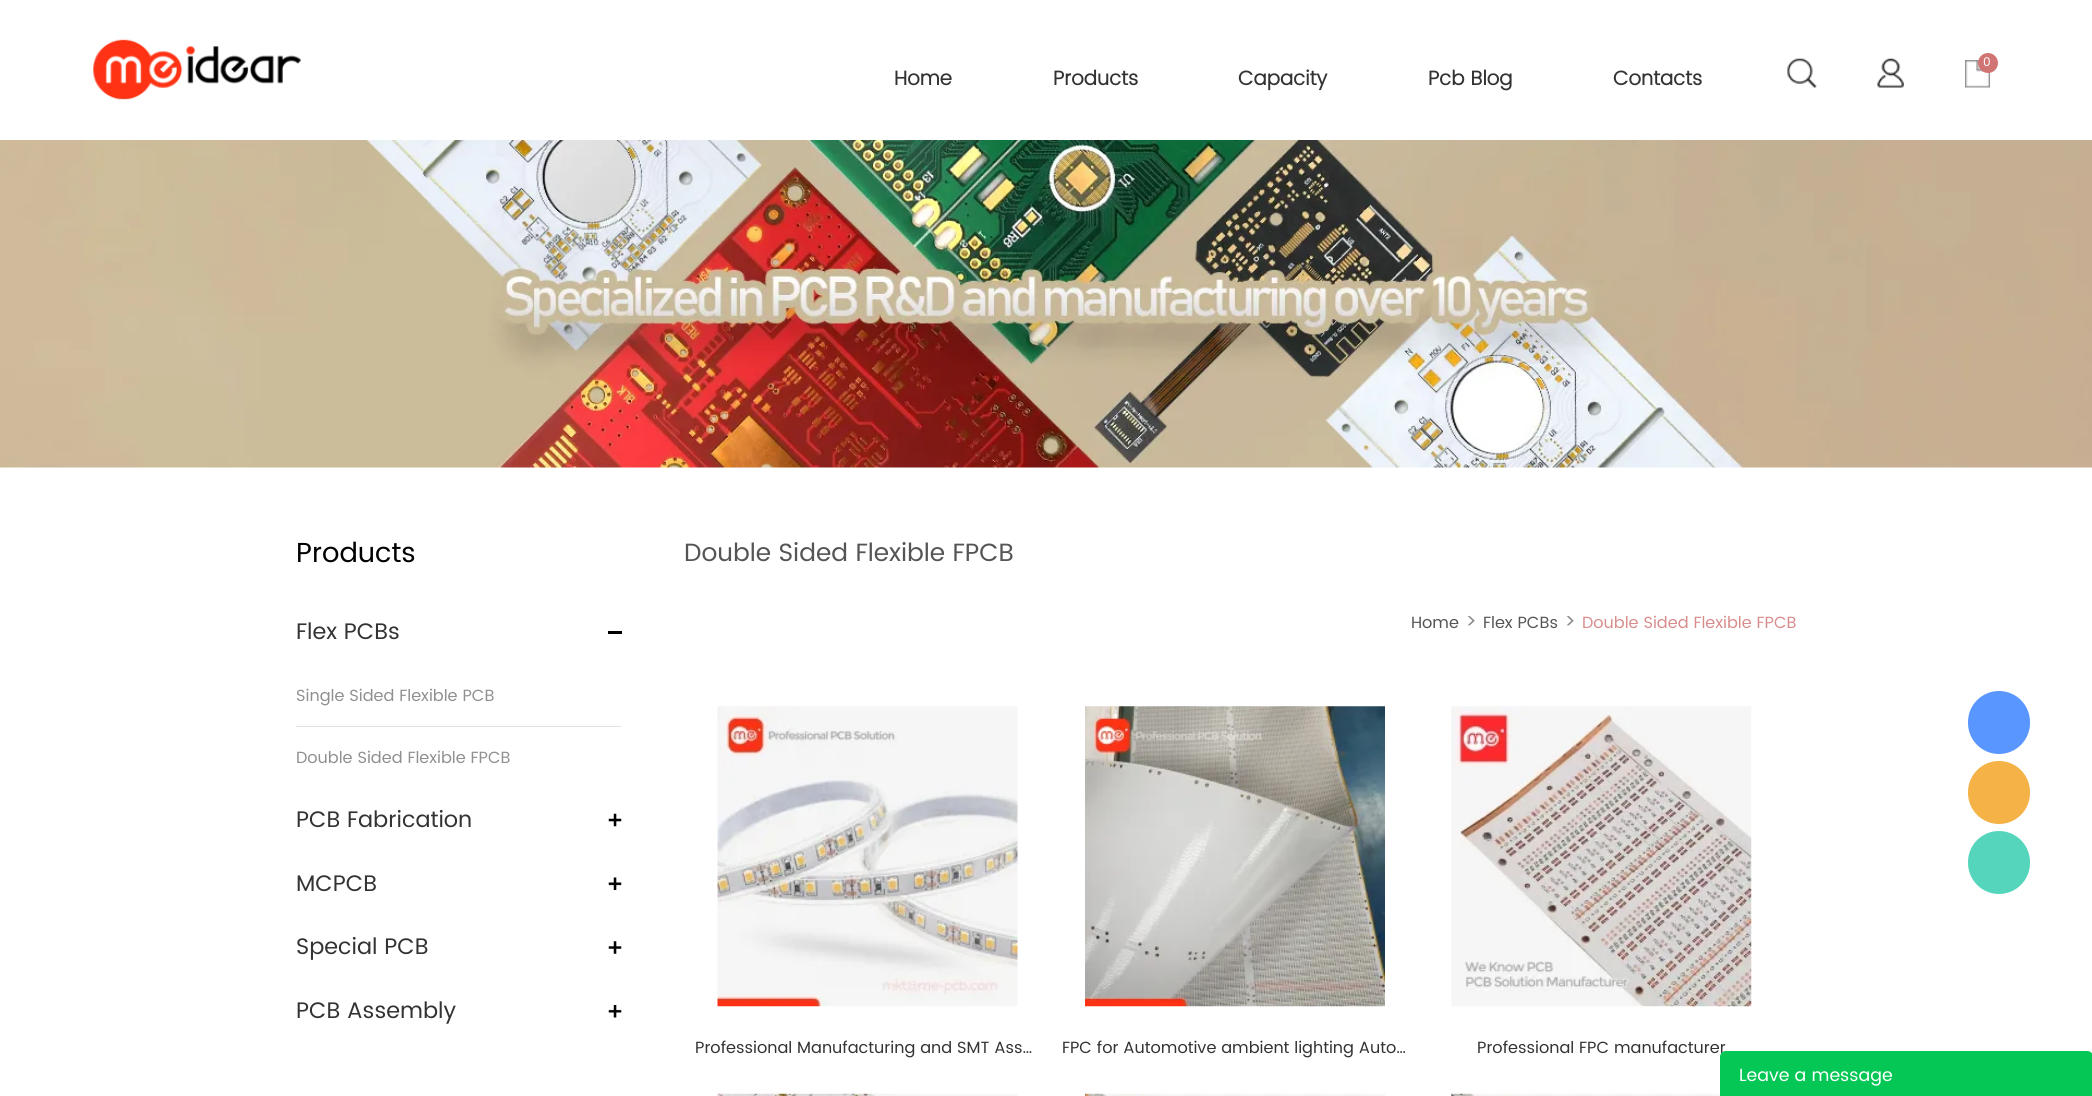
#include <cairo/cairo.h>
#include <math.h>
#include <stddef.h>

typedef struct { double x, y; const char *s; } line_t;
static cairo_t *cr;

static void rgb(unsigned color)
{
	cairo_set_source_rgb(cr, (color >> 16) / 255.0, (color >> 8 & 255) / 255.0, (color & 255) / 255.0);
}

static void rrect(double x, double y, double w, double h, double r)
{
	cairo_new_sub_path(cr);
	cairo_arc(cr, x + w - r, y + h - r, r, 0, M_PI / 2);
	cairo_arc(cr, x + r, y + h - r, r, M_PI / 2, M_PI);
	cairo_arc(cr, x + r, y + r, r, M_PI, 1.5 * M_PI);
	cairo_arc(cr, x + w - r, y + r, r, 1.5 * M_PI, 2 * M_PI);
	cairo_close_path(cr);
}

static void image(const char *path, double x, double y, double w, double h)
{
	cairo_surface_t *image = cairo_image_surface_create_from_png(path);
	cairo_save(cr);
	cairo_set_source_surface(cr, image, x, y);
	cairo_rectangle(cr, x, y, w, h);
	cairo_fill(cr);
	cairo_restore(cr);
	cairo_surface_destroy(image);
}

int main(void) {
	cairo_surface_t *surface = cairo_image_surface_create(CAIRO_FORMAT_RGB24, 2092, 1096);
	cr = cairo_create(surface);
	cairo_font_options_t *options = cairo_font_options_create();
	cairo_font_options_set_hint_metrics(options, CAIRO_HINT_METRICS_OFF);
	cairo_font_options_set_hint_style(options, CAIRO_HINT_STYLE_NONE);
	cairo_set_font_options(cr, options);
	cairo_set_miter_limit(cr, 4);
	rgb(0xffffff);
	cairo_paint(cr);
	image("img/1.png", 93, 39, 208, 61);
	image("img/2.png", 1787, 58, 30, 30);
	image("img/3.png", 1877, 58, 27, 30);
	image("img/4.png", 1965, 60, 25, 28);
	rgb(0xd17474);
	cairo_arc(cr, 1988, 63, 10, 0, 2 * M_PI);
	cairo_fill(cr);
	image("img/5.png", 0, 140, 2092, 328);
	rgb(0x000000);
	cairo_rectangle(cr, 608, 631, 14, 3);
	cairo_fill(cr);
	rgb(0xe2e2e2);
	cairo_rectangle(cr, 296, 726, 325, 1);
	cairo_fill(cr);
	image("img/6.png", 608, 813, 14, 14);
	image("img/7.png", 608, 877, 14, 13);
	image("img/8.png", 608, 941, 14, 13);
	image("img/9.png", 608, 1005, 14, 13);
	image("img/10.png", 717, 706, 301, 301);
	image("img/11.png", 1085, 706, 300, 301);
	image("img/12.png", 1451, 706, 301, 301);
	image("img/13.png", 717, 1093, 301, 3);
	image("img/14.png", 1085, 1093, 300, 3);
	image("img/15.png", 1451, 1093, 269, 3);
	rgb(0x5996ff);
	rrect(1968, 691, 62, 63, 31);
	cairo_fill(cr);
	rgb(0xf5b246);
	rrect(1968, 761, 62, 63, 31);
	cairo_fill(cr);
	rgb(0x55d5bb);
	rrect(1968, 831, 62, 63, 31);
	cairo_fill(cr);
	cairo_select_font_face(cr, "Poppins", CAIRO_FONT_SLANT_NORMAL, CAIRO_FONT_WEIGHT_NORMAL);
	cairo_set_font_size(cr, 12);
	rgb(0xffffff);
	cairo_move_to(cr, 1983, 66);
	cairo_show_text(cr, "0");
	cairo_select_font_face(cr, "Poppins", CAIRO_FONT_SLANT_NORMAL, CAIRO_FONT_WEIGHT_BOLD);
	cairo_set_font_size(cr, 20);
	rgb(0x333333);
	{
		static const line_t items[] = {
			{894, 85, "Home"},
			{1053, 85, "Products"},
			{1238, 85, "Capacity"},
			{1428, 85, "Pcb Blog"},
			{1613, 85, "Contacts"},
		};
		for (size_t i = 0; i < sizeof items / sizeof *items; i++) {
			cairo_move_to(cr, items[i].x, items[i].y);
			cairo_show_text(cr, items[i].s);
		}
	}
	cairo_select_font_face(cr, "Poppins", CAIRO_FONT_SLANT_NORMAL, CAIRO_FONT_WEIGHT_NORMAL);
	cairo_set_font_size(cr, 27.5);
	rgb(0x000000);
	cairo_move_to(cr, 296, 562);
	cairo_show_text(cr, "Products");
	cairo_set_font_size(cr, 22.5);
	rgb(0x333333);
	cairo_move_to(cr, 296, 639);
	cairo_show_text(cr, "Flex PCBs");
	cairo_set_font_size(cr, 16.25);
	rgb(0x909090);
	cairo_move_to(cr, 296, 701);
	cairo_show_text(cr, "Single Sided Flexible PCB");
	cairo_move_to(cr, 296, 763);
	cairo_show_text(cr, "Double Sided Flexible FPCB");
	cairo_set_font_size(cr, 22.5);
	rgb(0x333333);
	{
		static const line_t items[] = {
			{296, 827, "PCB Fabrication"},
			{296, 891, "MCPCB"},
			{296, 954, "Special PCB"},
			{296, 1018, "PCB Assembly"},
		};
		for (size_t i = 0; i < sizeof items / sizeof *items; i++) {
			cairo_move_to(cr, items[i].x, items[i].y);
			cairo_show_text(cr, items[i].s);
		}
	}
	cairo_set_font_size(cr, 25);
	rgb(0x555555);
	cairo_move_to(cr, 684, 561);
	cairo_show_text(cr, "Double Sided Flexible FPCB");
	cairo_set_font_size(cr, 16.25);
	cairo_move_to(cr, 1411, 628);
	cairo_show_text(cr, "Home");
	cairo_set_font_size(cr, 20);
	rgb(0x888888);
	cairo_move_to(cr, 1465, 628);
	cairo_show_text(cr, ">");
	cairo_set_font_size(cr, 16.25);
	rgb(0x555555);
	cairo_move_to(cr, 1483, 628);
	cairo_show_text(cr, "Flex PCBs");
	cairo_set_font_size(cr, 20);
	rgb(0x888888);
	cairo_move_to(cr, 1564, 628);
	cairo_show_text(cr, ">");
	cairo_set_font_size(cr, 16.25);
	rgb(0xd88d8d);
	cairo_move_to(cr, 1582, 628);
	cairo_show_text(cr, "Double Sided Flexible FPCB");
	rgb(0x333333);
	{
		static const line_t items[] = {
			{695, 1053, "Professional Manufacturing and SMT Ass…"},
			{1062, 1053, "FPC for Automotive ambient lighting Auto…"},
			{1477, 1053, "Professional FPC manufacturer"},
		};
		for (size_t i = 0; i < sizeof items / sizeof *items; i++) {
			cairo_move_to(cr, items[i].x, items[i].y);
			cairo_show_text(cr, items[i].s);
		}
	}
	rgb(0x05c756);
	cairo_new_path(cr);
	cairo_move_to(cr, 1726, 1051);
	cairo_line_to(cr, 2087, 1051);
	cairo_curve_to(cr, 2090.5, 1051, 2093, 1053.5, 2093, 1057);
	cairo_line_to(cr, 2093, 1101);
	cairo_line_to(cr, 1720, 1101);
	cairo_line_to(cr, 1720, 1057);
	cairo_curve_to(cr, 1720, 1053.5, 1722.5, 1051, 1726, 1051);
	cairo_close_path(cr);
	cairo_fill(cr);
	cairo_set_font_size(cr, 17.5);
	rgb(0xffffff);
	cairo_move_to(cr, 1739, 1081);
	cairo_show_text(cr, "Leave a message");
	cairo_surface_write_to_png(surface, "page.png");
	cairo_font_options_destroy(options);
	cairo_destroy(cr);
	cairo_surface_destroy(surface);
	return 0;
}
